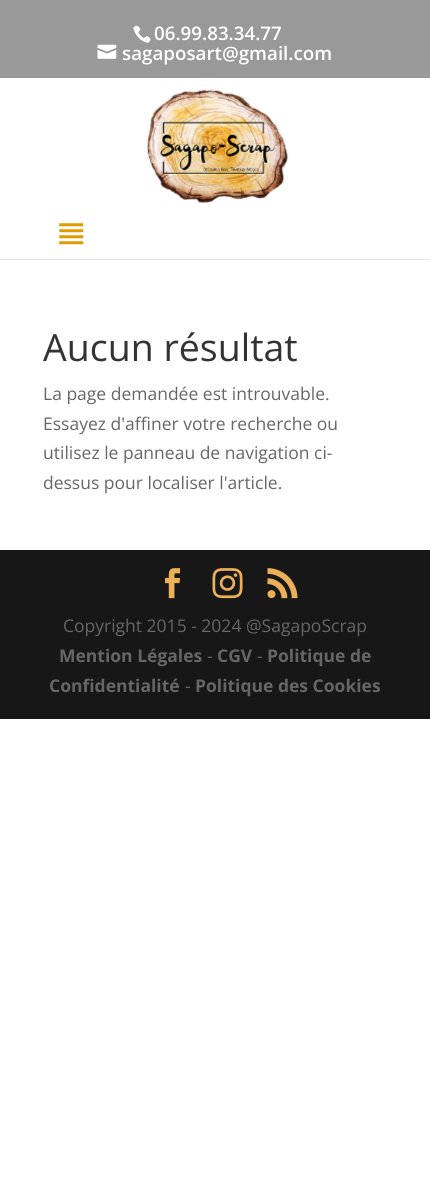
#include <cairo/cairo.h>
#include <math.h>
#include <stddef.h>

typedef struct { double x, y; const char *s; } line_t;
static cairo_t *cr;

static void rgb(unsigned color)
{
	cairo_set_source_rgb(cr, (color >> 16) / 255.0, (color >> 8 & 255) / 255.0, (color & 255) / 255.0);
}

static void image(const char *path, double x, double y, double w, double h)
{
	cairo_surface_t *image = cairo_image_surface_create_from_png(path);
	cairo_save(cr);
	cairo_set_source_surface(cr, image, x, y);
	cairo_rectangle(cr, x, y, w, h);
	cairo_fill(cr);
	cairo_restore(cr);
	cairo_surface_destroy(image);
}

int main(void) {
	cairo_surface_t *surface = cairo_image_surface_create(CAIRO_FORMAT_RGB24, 430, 1192);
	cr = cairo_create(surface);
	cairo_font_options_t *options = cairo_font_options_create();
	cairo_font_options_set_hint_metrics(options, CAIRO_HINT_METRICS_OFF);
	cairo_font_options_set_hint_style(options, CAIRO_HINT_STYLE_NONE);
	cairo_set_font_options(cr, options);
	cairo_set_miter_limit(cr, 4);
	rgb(0xffffff);
	cairo_paint(cr);
	rgb(0x999999);
	cairo_rectangle(cr, 0, 0, 430, 78);
	cairo_fill(cr);
	image("img/1.png", 133, 25, 18, 18);
	image("img/2.png", 97, 44, 20, 15);
	rgb(0xe6e6e6);
	cairo_rectangle(cr, 0, 259, 430, 1);
	cairo_fill(cr);
	image("img/3.png", 147, 89, 142, 114);
	image("img/4.png", 59, 223, 25, 22);
	rgb(0x171717);
	cairo_rectangle(cr, 0, 550, 430, 169);
	cairo_fill(cr);
	image("img/5.png", 165, 568, 16, 31);
	image("img/6.png", 212, 568, 31, 31);
	image("img/7.png", 267, 568, 31, 31);
	cairo_select_font_face(cr, "Open Sans SemiBold", CAIRO_FONT_SLANT_NORMAL, CAIRO_FONT_WEIGHT_NORMAL);
	cairo_set_font_size(cr, 18.75);
	rgb(0xffffff);
	cairo_move_to(cr, 154, 40);
	cairo_show_text(cr, "06.99.83.34.77");
	cairo_move_to(cr, 122, 60);
	cairo_show_text(cr, "sagaposart@gmail.com");
	cairo_select_font_face(cr, "Open Sans", CAIRO_FONT_SLANT_NORMAL, CAIRO_FONT_WEIGHT_NORMAL);
	cairo_set_font_size(cr, 37.5);
	rgb(0x333333);
	cairo_move_to(cr, 43, 361);
	cairo_show_text(cr, "Aucun résultat");
	cairo_set_font_size(cr, 17.5);
	rgb(0x666666);
	{
		static const line_t items[] = {
			{43, 400, "La page demandée est introuvable."},
			{43, 430, "Essayez d'affiner votre recherche ou"},
			{43, 459, "utilisez le panneau de navigation ci-"},
			{43, 489, "dessus pour localiser l'article."},
			{63, 632, "Copyright 2015 - 2024 @SagapoScrap"},
		};
		for (size_t i = 0; i < sizeof items / sizeof *items; i++) {
			cairo_move_to(cr, items[i].x, items[i].y);
			cairo_show_text(cr, items[i].s);
		}
	}
	cairo_select_font_face(cr, "Open Sans", CAIRO_FONT_SLANT_NORMAL, CAIRO_FONT_WEIGHT_BOLD);
	cairo_move_to(cr, 59, 662);
	cairo_show_text(cr, "Mention Légales");
	cairo_select_font_face(cr, "Open Sans", CAIRO_FONT_SLANT_NORMAL, CAIRO_FONT_WEIGHT_NORMAL);
	cairo_move_to(cr, 207, 662);
	cairo_show_text(cr, "-");
	cairo_select_font_face(cr, "Open Sans", CAIRO_FONT_SLANT_NORMAL, CAIRO_FONT_WEIGHT_BOLD);
	cairo_move_to(cr, 217, 662);
	cairo_show_text(cr, "CGV");
	cairo_select_font_face(cr, "Open Sans", CAIRO_FONT_SLANT_NORMAL, CAIRO_FONT_WEIGHT_NORMAL);
	cairo_move_to(cr, 257, 662);
	cairo_show_text(cr, "-");
	cairo_select_font_face(cr, "Open Sans", CAIRO_FONT_SLANT_NORMAL, CAIRO_FONT_WEIGHT_BOLD);
	cairo_move_to(cr, 267, 662);
	cairo_show_text(cr, "Politique de");
	cairo_move_to(cr, 49, 692);
	cairo_show_text(cr, "Confidentialité");
	cairo_select_font_face(cr, "Open Sans", CAIRO_FONT_SLANT_NORMAL, CAIRO_FONT_WEIGHT_NORMAL);
	cairo_move_to(cr, 185, 692);
	cairo_show_text(cr, "-");
	cairo_select_font_face(cr, "Open Sans", CAIRO_FONT_SLANT_NORMAL, CAIRO_FONT_WEIGHT_BOLD);
	cairo_move_to(cr, 195, 692);
	cairo_show_text(cr, "Politique des Cookies");
	cairo_surface_write_to_png(surface, "page.png");
	cairo_font_options_destroy(options);
	cairo_destroy(cr);
	cairo_surface_destroy(surface);
	return 0;
}
